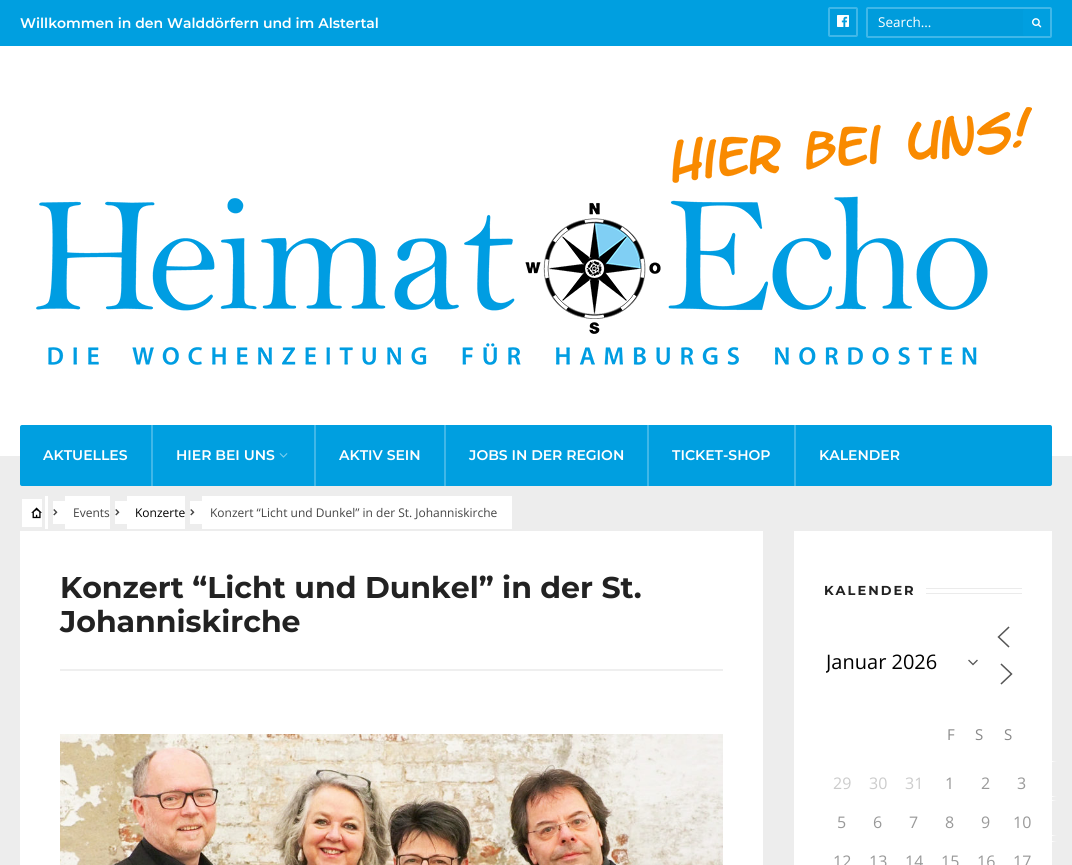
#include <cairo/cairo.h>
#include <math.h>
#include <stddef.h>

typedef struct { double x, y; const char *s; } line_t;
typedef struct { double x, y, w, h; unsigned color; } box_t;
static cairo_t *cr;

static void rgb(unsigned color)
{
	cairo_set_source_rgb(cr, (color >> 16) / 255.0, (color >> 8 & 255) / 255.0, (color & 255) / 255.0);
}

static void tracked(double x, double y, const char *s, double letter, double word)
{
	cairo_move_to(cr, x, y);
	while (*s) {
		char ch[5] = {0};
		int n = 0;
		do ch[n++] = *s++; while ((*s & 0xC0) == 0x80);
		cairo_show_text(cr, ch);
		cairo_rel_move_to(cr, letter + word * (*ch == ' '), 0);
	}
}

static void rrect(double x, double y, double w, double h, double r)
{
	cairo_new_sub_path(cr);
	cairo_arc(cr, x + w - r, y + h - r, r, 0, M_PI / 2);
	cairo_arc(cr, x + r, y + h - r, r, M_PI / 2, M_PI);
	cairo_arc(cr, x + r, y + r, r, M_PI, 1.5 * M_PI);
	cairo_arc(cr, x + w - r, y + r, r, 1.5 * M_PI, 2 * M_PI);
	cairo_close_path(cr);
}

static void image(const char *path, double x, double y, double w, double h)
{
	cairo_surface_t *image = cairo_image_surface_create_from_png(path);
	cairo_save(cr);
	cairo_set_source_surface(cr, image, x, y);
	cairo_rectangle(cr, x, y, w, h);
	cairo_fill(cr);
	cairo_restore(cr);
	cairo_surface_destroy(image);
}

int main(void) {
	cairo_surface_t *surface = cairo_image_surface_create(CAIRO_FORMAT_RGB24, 1072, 865);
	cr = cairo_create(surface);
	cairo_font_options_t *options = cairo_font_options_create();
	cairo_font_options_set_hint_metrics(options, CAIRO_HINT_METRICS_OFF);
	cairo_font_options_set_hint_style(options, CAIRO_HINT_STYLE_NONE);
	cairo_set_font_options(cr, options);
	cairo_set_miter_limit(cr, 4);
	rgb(0xededed);
	cairo_paint(cr);
	rgb(0x009fe0);
	cairo_rectangle(cr, 0, 0, 1072, 46);
	cairo_fill(cr);
	rgb(0x009cdc);
	rrect(829, 8, 28, 28, 1);
	cairo_fill_preserve(cr);
	rgb(0x40b7e8);
	cairo_stroke(cr);
	image("img/1.png", 837, 15, 12, 12);
	rgb(0x009cdc);
	rrect(867, 8, 184, 29, 1);
	cairo_fill_preserve(cr);
	rgb(0x40b7e8);
	cairo_stroke(cr);
	rgb(0x009fe0);
	rrect(1023, 9, 27, 27, 2);
	cairo_fill(cr);
	image("img/2.png", 1032, 18, 10, 10);
	rgb(0xffffff);
	cairo_rectangle(cr, 0, 46, 1072, 410);
	cairo_fill(cr);
	image("img/3.png", 36, 107, 996, 258);
	rgb(0x009fe0);
	rrect(20, 425, 1032, 61, 2);
	cairo_fill(cr);
	rgb(0x40b7e8);
	cairo_rectangle(cr, 151, 425, 2, 61);
	cairo_fill(cr);
	image("img/4.png", 279, 453, 9, 5);
	{
		static const box_t items[] = {
			{314, 425, 2, 61, 0x40b7e8},
			{444, 425, 2, 61, 0x40b7e8},
			{647, 425, 2, 61, 0x40b7e8},
			{794, 425, 2, 61, 0x40b7e8},
			{22, 499, 20, 28, 0xffffff},
			{45, 496, 3, 33, 0xffffff},
			{53, 501, 12, 23, 0xffffff},
		};
		for (size_t i = 0; i < sizeof items / sizeof *items; i++) {
			rgb(items[i].color);
			cairo_rectangle(cr, items[i].x, items[i].y, items[i].w, items[i].h);
			cairo_fill(cr);
		}
	}
	image("img/5.png", 31, 507, 11, 12);
	image("img/6.png", 53, 509, 5, 7);
	cairo_rectangle(cr, 65, 496, 45, 33);
	cairo_fill(cr);
	cairo_rectangle(cr, 115, 501, 12, 23);
	cairo_fill(cr);
	image("img/6.png", 115, 509, 5, 7);
	cairo_rectangle(cr, 127, 496, 58, 33);
	cairo_fill(cr);
	cairo_rectangle(cr, 190, 501, 12, 23);
	cairo_fill(cr);
	image("img/6.png", 190, 509, 5, 7);
	{
		static const box_t items[] = {
			{202, 496, 310, 33, 0xffffff},
			{20, 531, 743, 334, 0xffffff},
			{60, 669, 663, 2, 0xefefef},
		};
		for (size_t i = 0; i < sizeof items / sizeof *items; i++) {
			rgb(items[i].color);
			cairo_rectangle(cr, items[i].x, items[i].y, items[i].w, items[i].h);
			cairo_fill(cr);
		}
	}
	image("img/7.png", 60, 734, 663, 131);
	rgb(0xffffff);
	cairo_rectangle(cr, 794, 531, 258, 334);
	cairo_fill(cr);
	cairo_save(cr);
	cairo_rectangle(cr, 824, 561, 198, 58);
	cairo_clip(cr);
	cairo_rectangle(cr, 824.5, 588.5, 199, 5);
	rgb(0xebebeb);
	cairo_set_line_width(cr, 1);
	cairo_stroke(cr);
	cairo_restore(cr);
	cairo_rectangle(cr, 824, 588, 102, 6);
	cairo_fill(cr);
	cairo_new_path(cr);
	cairo_move_to(cr, 969, 660.5);
	cairo_line_to(cr, 973, 664.5);
	cairo_line_to(cr, 977, 660.5);
	rgb(0x555555);
	cairo_set_line_width(cr, 1.3);
	cairo_set_line_cap(cr, CAIRO_LINE_CAP_SQUARE);
	cairo_stroke(cr);
	cairo_new_path(cr);
	cairo_move_to(cr, 1008.5, 646.5);
	cairo_line_to(cr, 998.5, 637);
	cairo_line_to(cr, 1008.5, 627.5);
	cairo_move_to(cr, 1001.5, 683.5);
	cairo_line_to(cr, 1011.5, 674);
	cairo_line_to(cr, 1001.5, 664.5);
	cairo_set_line_width(cr, 1.5);
	cairo_stroke(cr);
	rgb(0xffffff);
	cairo_new_path(cr);
	cairo_move_to(cr, 1058, 761);
	cairo_line_to(cr, 1052, 761);
	cairo_line_to(cr, 1052, 797);
	cairo_line_to(cr, 1058, 797);
	cairo_curve_to(cr, 1048, 797, 1040, 789, 1040, 779);
	cairo_curve_to(cr, 1040, 769, 1048, 761, 1058, 761);
	cairo_close_path(cr);
	cairo_fill(cr);
	cairo_new_path(cr);
	cairo_move_to(cr, 1058, 800);
	cairo_line_to(cr, 1052, 800);
	cairo_line_to(cr, 1052, 836);
	cairo_line_to(cr, 1058, 836);
	cairo_curve_to(cr, 1048, 836, 1040, 828, 1040, 818);
	cairo_curve_to(cr, 1040, 808, 1048, 800, 1058, 800);
	cairo_close_path(cr);
	cairo_fill(cr);
	cairo_new_path(cr);
	cairo_move_to(cr, 1058, 841);
	cairo_line_to(cr, 1052, 841);
	cairo_line_to(cr, 1052, 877);
	cairo_line_to(cr, 1058, 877);
	cairo_curve_to(cr, 1048, 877, 1040, 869, 1040, 859);
	cairo_curve_to(cr, 1040, 849, 1048, 841, 1058, 841);
	cairo_close_path(cr);
	cairo_fill(cr);
	cairo_select_font_face(cr, "Montserrat SemiBold", CAIRO_FONT_SLANT_NORMAL, CAIRO_FONT_WEIGHT_NORMAL);
	cairo_set_font_size(cr, 14);
	cairo_move_to(cr, 20, 28);
	cairo_show_text(cr, "Willkommen in den Walddörfern und im Alstertal");
	cairo_select_font_face(cr, "Open Sans", CAIRO_FONT_SLANT_NORMAL, CAIRO_FONT_WEIGHT_NORMAL);
	cairo_set_font_size(cr, 13.5);
	cairo_move_to(cr, 878, 27);
	cairo_show_text(cr, "Search...");
	cairo_select_font_face(cr, "Montserrat SemiBold", CAIRO_FONT_SLANT_NORMAL, CAIRO_FONT_WEIGHT_NORMAL);
	cairo_set_font_size(cr, 14);
	{
		static const line_t items[] = {
			{43, 460, "AKTUELLES"},
			{176, 460, "HIER BEI UNS"},
			{339, 460, "AKTIV SEIN"},
			{469, 460, "JOBS IN DER REGION"},
			{672, 460, "TICKET-SHOP"},
			{819, 460, "KALENDER"},
		};
		for (size_t i = 0; i < sizeof items / sizeof *items; i++) {
			cairo_move_to(cr, items[i].x, items[i].y);
			cairo_show_text(cr, items[i].s);
		}
	}
	cairo_select_font_face(cr, "Open Sans", CAIRO_FONT_SLANT_NORMAL, CAIRO_FONT_WEIGHT_NORMAL);
	cairo_set_font_size(cr, 12);
	rgb(0x444444);
	cairo_move_to(cr, 73, 517);
	cairo_show_text(cr, "Events");
	rgb(0x000000);
	cairo_move_to(cr, 135, 517);
	cairo_show_text(cr, "Konzerte");
	rgb(0x444444);
	cairo_move_to(cr, 210, 517);
	cairo_show_text(cr, "Konzert “Licht und Dunkel” in der St. Johanniskirche");
	cairo_select_font_face(cr, "Montserrat", CAIRO_FONT_SLANT_NORMAL, CAIRO_FONT_WEIGHT_BOLD);
	cairo_set_font_size(cr, 30);
	rgb(0x222222);
	cairo_move_to(cr, 60, 598);
	cairo_show_text(cr, "Konzert “Licht und Dunkel” in der St.");
	cairo_move_to(cr, 60, 632);
	cairo_show_text(cr, "Johanniskirche");
	cairo_set_font_size(cr, 13);
	tracked(824, 595, "KALENDER", 2, 0);
	cairo_save(cr);
	rrect(826, 642, 162, 38, 4);
	cairo_clip(cr);
	cairo_select_font_face(cr, "Open Sans", CAIRO_FONT_SLANT_NORMAL, CAIRO_FONT_WEIGHT_NORMAL);
	cairo_set_font_size(cr, 20);
	rgb(0x000000);
	cairo_move_to(cr, 826, 669);
	cairo_show_text(cr, "Januar 2026");
	cairo_restore(cr);
	cairo_select_font_face(cr, "Open Sans", CAIRO_FONT_SLANT_NORMAL, CAIRO_FONT_WEIGHT_NORMAL);
	cairo_set_font_size(cr, 15);
	rgb(0x888888);
	{
		static const line_t items[] = {
			{947, 740, "F"},
			{975, 740, "S"},
			{1004, 740, "S"},
		};
		for (size_t i = 0; i < sizeof items / sizeof *items; i++) {
			cairo_move_to(cr, items[i].x, items[i].y);
			cairo_show_text(cr, items[i].s);
		}
	}
	cairo_set_font_size(cr, 16);
	rgb(0xcccccc);
	{
		static const line_t items[] = {
			{833, 789, "29"},
			{869, 789, "30"},
			{905, 789, "31"},
		};
		for (size_t i = 0; i < sizeof items / sizeof *items; i++) {
			cairo_move_to(cr, items[i].x, items[i].y);
			cairo_show_text(cr, items[i].s);
		}
	}
	rgb(0x999999);
	{
		static const line_t items[] = {
			{945, 789, "1"},
			{981, 789, "2"},
			{1017, 789, "3"},
			{837, 828, "5"},
			{873, 828, "6"},
			{909, 828, "7"},
			{945, 828, "8"},
			{981, 828, "9"},
			{1013, 828, "10"},
			{833, 867, "12"},
			{869, 867, "13"},
			{905, 867, "14"},
			{941, 867, "15"},
			{977, 867, "16"},
			{1013, 867, "17"},
		};
		for (size_t i = 0; i < sizeof items / sizeof *items; i++) {
			cairo_move_to(cr, items[i].x, items[i].y);
			cairo_show_text(cr, items[i].s);
		}
	}
	cairo_surface_write_to_png(surface, "page.png");
	cairo_font_options_destroy(options);
	cairo_destroy(cr);
	cairo_surface_destroy(surface);
	return 0;
}
